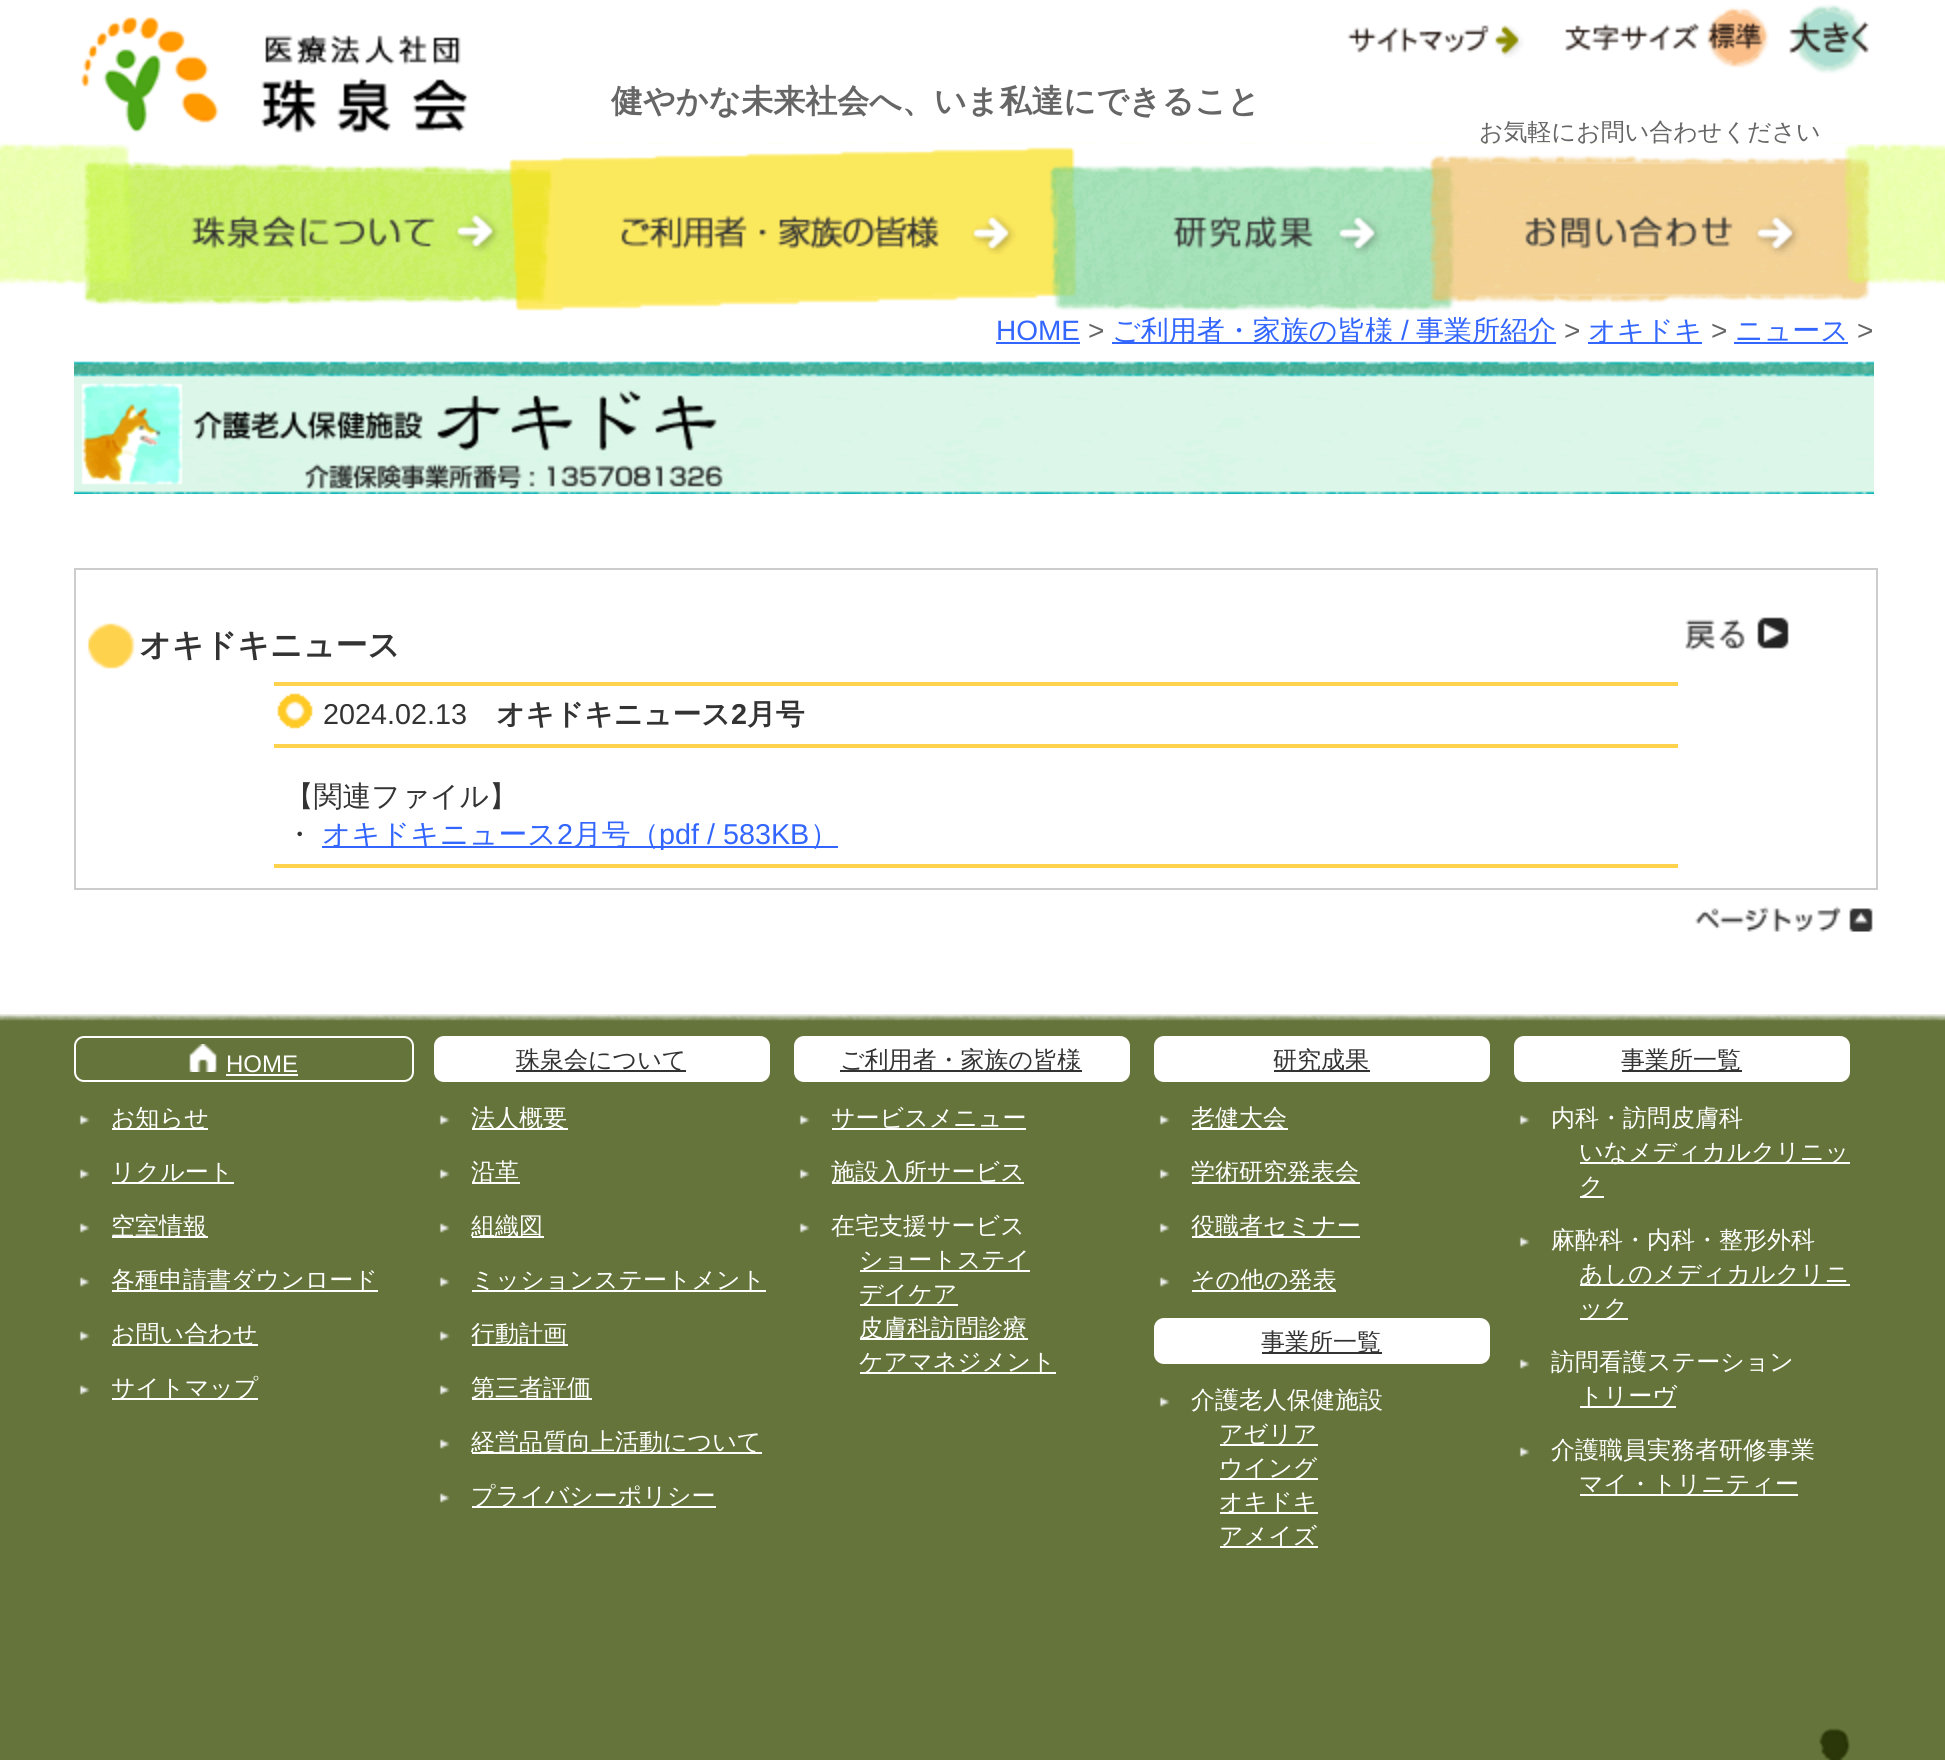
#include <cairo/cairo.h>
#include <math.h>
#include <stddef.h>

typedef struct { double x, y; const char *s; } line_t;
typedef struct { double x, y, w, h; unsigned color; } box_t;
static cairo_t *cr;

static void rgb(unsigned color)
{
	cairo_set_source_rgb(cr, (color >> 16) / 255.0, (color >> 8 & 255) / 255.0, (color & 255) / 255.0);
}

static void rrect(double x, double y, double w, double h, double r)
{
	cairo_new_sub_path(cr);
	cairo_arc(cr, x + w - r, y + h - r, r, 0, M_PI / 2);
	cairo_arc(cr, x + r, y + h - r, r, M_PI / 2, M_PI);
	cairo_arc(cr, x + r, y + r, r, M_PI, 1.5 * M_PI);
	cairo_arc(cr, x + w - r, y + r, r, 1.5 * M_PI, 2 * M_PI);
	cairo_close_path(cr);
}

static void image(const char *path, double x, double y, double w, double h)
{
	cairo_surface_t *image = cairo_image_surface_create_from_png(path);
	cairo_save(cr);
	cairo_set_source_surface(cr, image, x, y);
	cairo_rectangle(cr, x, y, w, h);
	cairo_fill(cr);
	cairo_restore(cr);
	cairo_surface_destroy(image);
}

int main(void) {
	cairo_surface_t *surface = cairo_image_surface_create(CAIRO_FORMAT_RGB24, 1945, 1760);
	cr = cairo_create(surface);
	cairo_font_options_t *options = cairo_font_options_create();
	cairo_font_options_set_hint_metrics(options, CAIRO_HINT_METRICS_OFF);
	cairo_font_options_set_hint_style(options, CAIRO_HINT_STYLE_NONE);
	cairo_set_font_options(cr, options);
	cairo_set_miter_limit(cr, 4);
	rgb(0xffffff);
	cairo_paint(cr);
	image("img/1.png", 0, 143, 1945, 142);
	image("img/2.png", 74, 17, 477, 127);
	image("img/3.png", 1347, 25, 177, 33);
	image("img/4.png", 1565, 23, 135, 28);
	image("img/5.png", 1707, 7, 62, 61);
	image("img/6.png", 1789, 4, 80, 70);
	image("img/7.png", 74, 144, 480, 167);
	image("img/8.png", 554, 144, 518, 167);
	image("img/9.png", 1072, 144, 378, 167);
	image("img/10.png", 1450, 144, 424, 165);
	{
		static const box_t items[] = {
			{996, 342, 84, 2, 0x3366ff},
			{1112, 342, 444, 2, 0x3366ff},
			{1588, 342, 114, 2, 0x3366ff},
			{1734, 342, 114, 2, 0x3366ff},
		};
		for (size_t i = 0; i < sizeof items / sizeof *items; i++) {
			rgb(items[i].color);
			cairo_rectangle(cr, items[i].x, items[i].y, items[i].w, items[i].h);
			cairo_fill(cr);
		}
	}
	image("img/11.png", 74, 361, 1800, 133);
	cairo_rectangle(cr, 75, 569, 1802, 320);
	rgb(0xcccccc);
	cairo_stroke(cr);
	image("img/12.png", 87, 623, 48, 46);
	image("img/13.png", 1685, 617, 104, 34);
	image("img/14.png", 277, 693, 36, 36);
	{
		static const box_t items[] = {
			{274, 682, 1404, 4, 0xffd24d},
			{274, 744, 1404, 4, 0xffd24d},
			{322, 846, 516, 2, 0x3366ff},
			{274, 864, 1404, 4, 0xffd24d},
		};
		for (size_t i = 0; i < sizeof items / sizeof *items; i++) {
			rgb(items[i].color);
			cairo_rectangle(cr, items[i].x, items[i].y, items[i].w, items[i].h);
			cairo_fill(cr);
		}
	}
	image("img/15.png", 1695, 906, 178, 26);
	image("img/16.png", 0, 1014, 1945, 746);
	image("img/17.png", 1819, 1728, 31, 32);
	rrect(75, 1037, 338, 44, 9);
	rgb(0xffffff);
	cairo_stroke(cr);
	image("img/18.png", 189, 1044, 28, 28);
	cairo_rectangle(cr, 226, 1074, 72, 2);
	cairo_fill(cr);
	image("img/19.png", 79, 1115, 11, 10);
	cairo_rectangle(cr, 112, 1128, 96, 2);
	cairo_fill(cr);
	image("img/19.png", 79, 1169, 11, 10);
	cairo_rectangle(cr, 112, 1182, 122, 2);
	cairo_fill(cr);
	image("img/19.png", 79, 1223, 11, 10);
	cairo_rectangle(cr, 112, 1236, 96, 2);
	cairo_fill(cr);
	image("img/19.png", 79, 1277, 11, 10);
	cairo_rectangle(cr, 112, 1290, 266, 2);
	cairo_fill(cr);
	image("img/19.png", 79, 1331, 11, 10);
	cairo_rectangle(cr, 112, 1344, 146, 2);
	cairo_fill(cr);
	image("img/19.png", 79, 1385, 11, 10);
	cairo_rectangle(cr, 112, 1398, 146, 2);
	cairo_fill(cr);
	rrect(434, 1036, 336, 46, 10);
	cairo_fill(cr);
	rgb(0x333333);
	cairo_rectangle(cr, 516, 1070, 170, 2);
	cairo_fill(cr);
	image("img/20.png", 439, 1115, 11, 10);
	rgb(0xffffff);
	cairo_rectangle(cr, 472, 1128, 96, 2);
	cairo_fill(cr);
	image("img/20.png", 439, 1169, 11, 10);
	cairo_rectangle(cr, 472, 1182, 48, 2);
	cairo_fill(cr);
	image("img/20.png", 439, 1223, 11, 10);
	cairo_rectangle(cr, 472, 1236, 72, 2);
	cairo_fill(cr);
	image("img/20.png", 439, 1277, 11, 10);
	cairo_rectangle(cr, 472, 1290, 294, 2);
	cairo_fill(cr);
	image("img/20.png", 439, 1331, 11, 10);
	cairo_rectangle(cr, 472, 1344, 96, 2);
	cairo_fill(cr);
	image("img/20.png", 439, 1385, 11, 10);
	cairo_rectangle(cr, 472, 1398, 120, 2);
	cairo_fill(cr);
	image("img/20.png", 439, 1439, 11, 10);
	cairo_rectangle(cr, 472, 1452, 290, 2);
	cairo_fill(cr);
	image("img/20.png", 439, 1493, 11, 10);
	cairo_rectangle(cr, 472, 1506, 244, 2);
	cairo_fill(cr);
	rrect(794, 1036, 336, 46, 10);
	cairo_fill(cr);
	rgb(0x333333);
	cairo_rectangle(cr, 840, 1070, 242, 2);
	cairo_fill(cr);
	image("img/19.png", 799, 1115, 11, 10);
	rgb(0xffffff);
	cairo_rectangle(cr, 832, 1128, 194, 2);
	cairo_fill(cr);
	image("img/19.png", 799, 1169, 11, 10);
	cairo_rectangle(cr, 832, 1182, 192, 2);
	cairo_fill(cr);
	image("img/19.png", 799, 1223, 11, 10);
	{
		static const box_t items[] = {
			{860, 1270, 170, 2, 0xffffff},
			{860, 1304, 98, 2, 0xffffff},
			{860, 1338, 168, 2, 0xffffff},
			{860, 1372, 196, 2, 0xffffff},
		};
		for (size_t i = 0; i < sizeof items / sizeof *items; i++) {
			rgb(items[i].color);
			cairo_rectangle(cr, items[i].x, items[i].y, items[i].w, items[i].h);
			cairo_fill(cr);
		}
	}
	rrect(1154, 1036, 336, 46, 10);
	cairo_fill(cr);
	rgb(0x333333);
	cairo_rectangle(cr, 1274, 1070, 96, 2);
	cairo_fill(cr);
	image("img/19.png", 1159, 1115, 11, 10);
	rgb(0xffffff);
	cairo_rectangle(cr, 1192, 1128, 96, 2);
	cairo_fill(cr);
	image("img/19.png", 1159, 1169, 11, 10);
	cairo_rectangle(cr, 1192, 1182, 168, 2);
	cairo_fill(cr);
	image("img/19.png", 1159, 1223, 11, 10);
	cairo_rectangle(cr, 1192, 1236, 168, 2);
	cairo_fill(cr);
	image("img/19.png", 1159, 1277, 11, 10);
	cairo_rectangle(cr, 1192, 1290, 144, 2);
	cairo_fill(cr);
	rrect(1154, 1318, 336, 46, 10);
	cairo_fill(cr);
	rgb(0x333333);
	cairo_rectangle(cr, 1262, 1352, 120, 2);
	cairo_fill(cr);
	image("img/19.png", 1159, 1397, 11, 10);
	{
		static const box_t items[] = {
			{1220, 1444, 98, 2, 0xffffff},
			{1220, 1478, 98, 2, 0xffffff},
			{1220, 1512, 98, 2, 0xffffff},
			{1220, 1546, 98, 2, 0xffffff},
		};
		for (size_t i = 0; i < sizeof items / sizeof *items; i++) {
			rgb(items[i].color);
			cairo_rectangle(cr, items[i].x, items[i].y, items[i].w, items[i].h);
			cairo_fill(cr);
		}
	}
	rrect(1514, 1036, 336, 46, 10);
	cairo_fill(cr);
	rgb(0x333333);
	cairo_rectangle(cr, 1622, 1070, 120, 2);
	cairo_fill(cr);
	image("img/21.png", 1519, 1115, 11, 10);
	rgb(0xffffff);
	cairo_rectangle(cr, 1580, 1162, 270, 2);
	cairo_fill(cr);
	cairo_rectangle(cr, 1580, 1196, 24, 2);
	cairo_fill(cr);
	image("img/21.png", 1519, 1237, 11, 10);
	cairo_rectangle(cr, 1580, 1284, 270, 2);
	cairo_fill(cr);
	cairo_rectangle(cr, 1580, 1318, 48, 2);
	cairo_fill(cr);
	image("img/21.png", 1519, 1359, 11, 10);
	cairo_rectangle(cr, 1580, 1406, 96, 2);
	cairo_fill(cr);
	image("img/21.png", 1519, 1447, 11, 10);
	cairo_rectangle(cr, 1580, 1494, 218, 2);
	cairo_fill(cr);
	cairo_select_font_face(cr, "WenQuanYi Zen Hei", CAIRO_FONT_SLANT_NORMAL, CAIRO_FONT_WEIGHT_BOLD);
	cairo_set_font_size(cr, 32);
	rgb(0x666666);
	cairo_move_to(cr, 611, 112);
	cairo_show_text(cr, "健やかな未来社会へ、いま私達にできること");
	cairo_select_font_face(cr, "WenQuanYi Zen Hei Medium", CAIRO_FONT_SLANT_NORMAL, CAIRO_FONT_WEIGHT_NORMAL);
	cairo_set_font_size(cr, 24);
	cairo_move_to(cr, 1479, 140);
	cairo_show_text(cr, "お気軽にお問い合わせください");
	cairo_select_font_face(cr, "Liberation Sans", CAIRO_FONT_SLANT_NORMAL, CAIRO_FONT_WEIGHT_NORMAL);
	cairo_set_font_size(cr, 28);
	rgb(0x3366ff);
	cairo_move_to(cr, 996, 340);
	cairo_show_text(cr, "HOME");
	rgb(0x666666);
	cairo_move_to(cr, 1088, 340);
	cairo_show_text(cr, ">");
	cairo_select_font_face(cr, "WenQuanYi Zen Hei Medium", CAIRO_FONT_SLANT_NORMAL, CAIRO_FONT_WEIGHT_NORMAL);
	rgb(0x3366ff);
	cairo_move_to(cr, 1112, 340);
	cairo_show_text(cr, "ご利用者・家族の皆様");
	cairo_select_font_face(cr, "Liberation Sans", CAIRO_FONT_SLANT_NORMAL, CAIRO_FONT_WEIGHT_NORMAL);
	cairo_move_to(cr, 1401, 340);
	cairo_show_text(cr, "/");
	cairo_select_font_face(cr, "WenQuanYi Zen Hei Medium", CAIRO_FONT_SLANT_NORMAL, CAIRO_FONT_WEIGHT_NORMAL);
	cairo_move_to(cr, 1416, 340);
	cairo_show_text(cr, "事業所紹介");
	cairo_select_font_face(cr, "Liberation Sans", CAIRO_FONT_SLANT_NORMAL, CAIRO_FONT_WEIGHT_NORMAL);
	rgb(0x666666);
	cairo_move_to(cr, 1564, 340);
	cairo_show_text(cr, ">");
	cairo_select_font_face(cr, "WenQuanYi Zen Hei Medium", CAIRO_FONT_SLANT_NORMAL, CAIRO_FONT_WEIGHT_NORMAL);
	rgb(0x3366ff);
	cairo_move_to(cr, 1588, 340);
	cairo_show_text(cr, "オキドキ");
	cairo_select_font_face(cr, "Liberation Sans", CAIRO_FONT_SLANT_NORMAL, CAIRO_FONT_WEIGHT_NORMAL);
	rgb(0x666666);
	cairo_move_to(cr, 1711, 340);
	cairo_show_text(cr, ">");
	cairo_select_font_face(cr, "WenQuanYi Zen Hei Medium", CAIRO_FONT_SLANT_NORMAL, CAIRO_FONT_WEIGHT_NORMAL);
	rgb(0x3366ff);
	cairo_move_to(cr, 1735, 340);
	cairo_show_text(cr, "ニュース");
	cairo_select_font_face(cr, "Liberation Sans", CAIRO_FONT_SLANT_NORMAL, CAIRO_FONT_WEIGHT_NORMAL);
	rgb(0x666666);
	cairo_move_to(cr, 1857, 340);
	cairo_show_text(cr, ">");
	cairo_select_font_face(cr, "WenQuanYi Zen Hei", CAIRO_FONT_SLANT_NORMAL, CAIRO_FONT_WEIGHT_BOLD);
	cairo_set_font_size(cr, 32);
	rgb(0x333333);
	cairo_move_to(cr, 139, 656);
	cairo_show_text(cr, "オキドキニュース");
	cairo_select_font_face(cr, "Liberation Sans", CAIRO_FONT_SLANT_NORMAL, CAIRO_FONT_WEIGHT_NORMAL);
	cairo_set_font_size(cr, 28.75);
	cairo_move_to(cr, 323, 724);
	cairo_show_text(cr, "2024.02.13");
	cairo_select_font_face(cr, "WenQuanYi Zen Hei", CAIRO_FONT_SLANT_NORMAL, CAIRO_FONT_WEIGHT_BOLD);
	cairo_move_to(cr, 496, 724);
	cairo_show_text(cr, "オキドキニュース");
	cairo_select_font_face(cr, "Liberation Sans", CAIRO_FONT_SLANT_NORMAL, CAIRO_FONT_WEIGHT_BOLD);
	cairo_move_to(cr, 731, 724);
	cairo_show_text(cr, "2");
	cairo_select_font_face(cr, "WenQuanYi Zen Hei", CAIRO_FONT_SLANT_NORMAL, CAIRO_FONT_WEIGHT_BOLD);
	cairo_move_to(cr, 747, 724);
	cairo_show_text(cr, "月号");
	cairo_select_font_face(cr, "WenQuanYi Zen Hei Medium", CAIRO_FONT_SLANT_NORMAL, CAIRO_FONT_WEIGHT_NORMAL);
	cairo_move_to(cr, 285, 806);
	cairo_show_text(cr, "【関連ファイル】");
	cairo_move_to(cr, 285, 844);
	cairo_show_text(cr, "・");
	rgb(0x3366ff);
	cairo_move_to(cr, 322, 844);
	cairo_show_text(cr, "オキドキニュース");
	cairo_select_font_face(cr, "Liberation Sans", CAIRO_FONT_SLANT_NORMAL, CAIRO_FONT_WEIGHT_NORMAL);
	cairo_move_to(cr, 557, 844);
	cairo_show_text(cr, "2");
	cairo_select_font_face(cr, "WenQuanYi Zen Hei Medium", CAIRO_FONT_SLANT_NORMAL, CAIRO_FONT_WEIGHT_NORMAL);
	cairo_move_to(cr, 573, 844);
	cairo_show_text(cr, "月号（");
	cairo_select_font_face(cr, "Liberation Sans", CAIRO_FONT_SLANT_NORMAL, CAIRO_FONT_WEIGHT_NORMAL);
	cairo_move_to(cr, 659, 844);
	cairo_show_text(cr, "pdf / 583KB");
	cairo_select_font_face(cr, "WenQuanYi Zen Hei Medium", CAIRO_FONT_SLANT_NORMAL, CAIRO_FONT_WEIGHT_NORMAL);
	cairo_move_to(cr, 810, 844);
	cairo_show_text(cr, "）");
	cairo_select_font_face(cr, "Liberation Sans", CAIRO_FONT_SLANT_NORMAL, CAIRO_FONT_WEIGHT_NORMAL);
	cairo_set_font_size(cr, 24);
	rgb(0xffffff);
	cairo_move_to(cr, 226, 1072);
	cairo_show_text(cr, "HOME");
	cairo_select_font_face(cr, "WenQuanYi Zen Hei Medium", CAIRO_FONT_SLANT_NORMAL, CAIRO_FONT_WEIGHT_NORMAL);
	{
		static const line_t items[] = {
			{111, 1126, "お知らせ"},
			{111, 1180, "リクルート"},
			{111, 1234, "空室情報"},
			{111, 1288, "各種申請書ダウンロード"},
			{111, 1342, "お問い合わせ"},
			{111, 1396, "サイトマップ"},
		};
		for (size_t i = 0; i < sizeof items / sizeof *items; i++) {
			cairo_move_to(cr, items[i].x, items[i].y);
			cairo_show_text(cr, items[i].s);
		}
	}
	rgb(0x333333);
	cairo_move_to(cr, 516, 1068);
	cairo_show_text(cr, "珠泉会について");
	rgb(0xffffff);
	{
		static const line_t items[] = {
			{471, 1126, "法人概要"},
			{471, 1180, "沿革"},
			{471, 1234, "組織図"},
			{471, 1288, "ミッションステートメント"},
			{471, 1342, "行動計画"},
			{471, 1396, "第三者評価"},
			{471, 1450, "経営品質向上活動について"},
			{471, 1504, "プライバシーポリシー"},
		};
		for (size_t i = 0; i < sizeof items / sizeof *items; i++) {
			cairo_move_to(cr, items[i].x, items[i].y);
			cairo_show_text(cr, items[i].s);
		}
	}
	rgb(0x333333);
	cairo_move_to(cr, 840, 1068);
	cairo_show_text(cr, "ご利用者・家族の皆様");
	rgb(0xffffff);
	{
		static const line_t items[] = {
			{831, 1126, "サービスメニュー"},
			{831, 1180, "施設入所サービス"},
			{831, 1234, "在宅支援サービス"},
			{859, 1268, "ショートステイ"},
			{859, 1302, "デイケア"},
			{859, 1336, "皮膚科訪問診療"},
			{859, 1370, "ケアマネジメント"},
		};
		for (size_t i = 0; i < sizeof items / sizeof *items; i++) {
			cairo_move_to(cr, items[i].x, items[i].y);
			cairo_show_text(cr, items[i].s);
		}
	}
	rgb(0x333333);
	cairo_move_to(cr, 1273, 1068);
	cairo_show_text(cr, "研究成果");
	rgb(0xffffff);
	{
		static const line_t items[] = {
			{1191, 1126, "老健大会"},
			{1191, 1180, "学術研究発表会"},
			{1191, 1234, "役職者セミナー"},
			{1191, 1288, "その他の発表"},
		};
		for (size_t i = 0; i < sizeof items / sizeof *items; i++) {
			cairo_move_to(cr, items[i].x, items[i].y);
			cairo_show_text(cr, items[i].s);
		}
	}
	rgb(0x333333);
	cairo_move_to(cr, 1261, 1350);
	cairo_show_text(cr, "事業所一覧");
	rgb(0xffffff);
	{
		static const line_t items[] = {
			{1191, 1408, "介護老人保健施設"},
			{1219, 1442, "アゼリア"},
			{1219, 1476, "ウイング"},
			{1219, 1510, "オキドキ"},
			{1219, 1544, "アメイズ"},
		};
		for (size_t i = 0; i < sizeof items / sizeof *items; i++) {
			cairo_move_to(cr, items[i].x, items[i].y);
			cairo_show_text(cr, items[i].s);
		}
	}
	rgb(0x333333);
	cairo_move_to(cr, 1621, 1068);
	cairo_show_text(cr, "事業所一覧");
	rgb(0xffffff);
	{
		static const line_t items[] = {
			{1551, 1126, "内科・訪問皮膚科"},
			{1579, 1160, "いなメディカルクリニッ"},
			{1579, 1194, "ク"},
			{1551, 1248, "麻酔科・内科・整形外科"},
			{1579, 1282, "あしのメディカルクリニ"},
			{1579, 1316, "ック"},
			{1551, 1370, "訪問看護ステーション"},
			{1579, 1404, "トリーヴ"},
			{1551, 1458, "介護職員実務者研修事業"},
			{1579, 1492, "マイ・トリニティー"},
		};
		for (size_t i = 0; i < sizeof items / sizeof *items; i++) {
			cairo_move_to(cr, items[i].x, items[i].y);
			cairo_show_text(cr, items[i].s);
		}
	}
	cairo_surface_write_to_png(surface, "page.png");
	cairo_font_options_destroy(options);
	cairo_destroy(cr);
	cairo_surface_destroy(surface);
	return 0;
}
